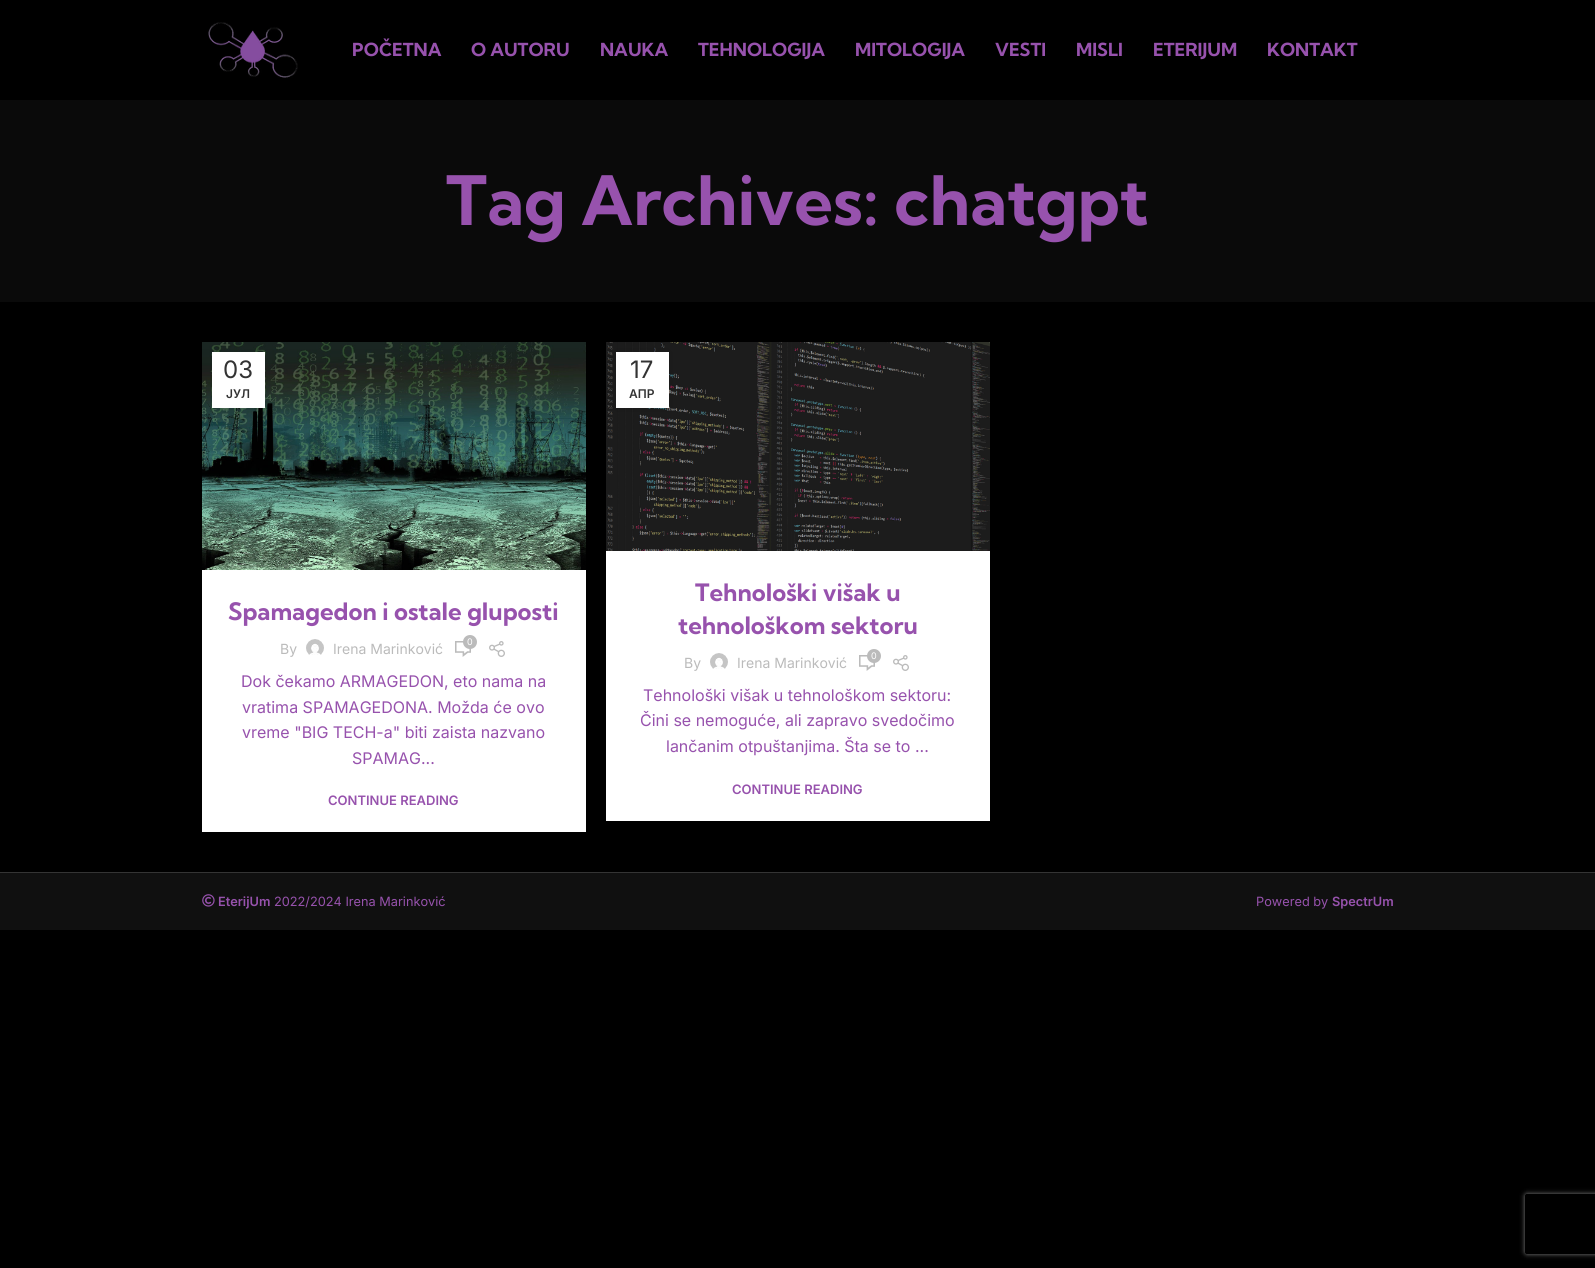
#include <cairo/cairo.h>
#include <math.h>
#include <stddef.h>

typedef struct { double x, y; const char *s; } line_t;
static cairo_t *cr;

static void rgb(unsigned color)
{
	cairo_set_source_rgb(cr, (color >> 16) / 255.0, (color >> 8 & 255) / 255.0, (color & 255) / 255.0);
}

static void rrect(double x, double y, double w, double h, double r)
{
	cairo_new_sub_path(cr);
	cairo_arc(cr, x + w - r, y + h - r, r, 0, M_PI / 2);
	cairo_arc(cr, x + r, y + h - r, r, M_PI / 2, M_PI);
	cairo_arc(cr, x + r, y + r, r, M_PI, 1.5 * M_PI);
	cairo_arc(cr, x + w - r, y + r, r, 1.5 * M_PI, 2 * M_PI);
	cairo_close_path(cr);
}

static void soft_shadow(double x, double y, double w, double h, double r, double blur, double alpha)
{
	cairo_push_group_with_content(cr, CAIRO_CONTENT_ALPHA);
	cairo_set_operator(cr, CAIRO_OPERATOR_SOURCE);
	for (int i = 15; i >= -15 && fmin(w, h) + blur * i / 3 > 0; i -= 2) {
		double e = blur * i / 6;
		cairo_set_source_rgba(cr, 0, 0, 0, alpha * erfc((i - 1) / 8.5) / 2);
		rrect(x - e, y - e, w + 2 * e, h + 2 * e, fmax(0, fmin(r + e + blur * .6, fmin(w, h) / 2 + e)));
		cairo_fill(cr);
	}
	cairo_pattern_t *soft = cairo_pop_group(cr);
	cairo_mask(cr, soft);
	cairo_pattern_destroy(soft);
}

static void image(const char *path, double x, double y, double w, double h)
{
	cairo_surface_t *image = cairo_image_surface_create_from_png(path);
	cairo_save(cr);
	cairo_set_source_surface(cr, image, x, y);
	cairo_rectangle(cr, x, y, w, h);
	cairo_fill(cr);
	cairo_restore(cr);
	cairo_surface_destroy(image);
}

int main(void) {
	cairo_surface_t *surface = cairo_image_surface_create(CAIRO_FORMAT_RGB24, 1595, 1268);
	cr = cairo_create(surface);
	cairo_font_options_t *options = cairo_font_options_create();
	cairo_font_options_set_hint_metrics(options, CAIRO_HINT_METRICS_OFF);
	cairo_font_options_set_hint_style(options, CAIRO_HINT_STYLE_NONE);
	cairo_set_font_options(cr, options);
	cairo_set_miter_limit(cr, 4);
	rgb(0x000000);
	cairo_paint(cr);
	image("img/1.png", 208, 22, 90, 56);
	rgb(0x0a0a0a);
	cairo_rectangle(cr, 0, 100, 1595, 202);
	cairo_fill(cr);
	image("img/2.png", 202, 342, 384, 228);
	rgb(0xffffff);
	cairo_rectangle(cr, 212, 352, 53, 56);
	cairo_fill(cr);
	cairo_rectangle(cr, 202, 570, 384, 262);
	cairo_fill(cr);
	image("img/3.png", 455, 641, 16, 16);
	rgb(0xbbbbbb);
	cairo_arc(cr, 470, 642, 7, 0, 2 * M_PI);
	cairo_fill(cr);
	image("img/4.png", 306, 639, 18, 16);
	image("img/5.png", 489, 641, 16, 16);
	image("img/6.png", 606, 342, 384, 209);
	rgb(0x000000);
	soft_shadow(616, 352, 53, 56, 0, 4.5, 0.1);
	rgb(0xffffff);
	cairo_rectangle(cr, 616, 352, 53, 56);
	cairo_fill(cr);
	cairo_rectangle(cr, 606, 551, 384, 270);
	cairo_fill(cr);
	image("img/3.png", 859, 655, 16, 16);
	rgb(0xbbbbbb);
	cairo_arc(cr, 874, 656, 7, 0, 2 * M_PI);
	cairo_fill(cr);
	image("img/7.png", 710, 653, 18, 16);
	image("img/5.png", 893, 655, 16, 16);
	rgb(0x101010);
	cairo_rectangle(cr, 0, 873, 1595, 57);
	cairo_fill(cr);
	rgb(0x343434);
	cairo_rectangle(cr, 0, 872, 1595, 1);
	cairo_fill(cr);
	image("img/8.png", 202, 894, 13, 13);
	cairo_save(cr);
	cairo_set_fill_rule(cr, CAIRO_FILL_RULE_EVEN_ODD);
	cairo_new_path(cr);
	cairo_move_to(cr, 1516, 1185);
	cairo_line_to(cr, 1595, 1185);
	cairo_line_to(cr, 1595, 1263);
	cairo_line_to(cr, 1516, 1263);
	cairo_close_path(cr);
	cairo_move_to(cr, 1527, 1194);
	cairo_line_to(cr, 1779, 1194);
	cairo_curve_to(cr, 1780, 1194, 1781, 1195, 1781, 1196);
	cairo_line_to(cr, 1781, 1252);
	cairo_curve_to(cr, 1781, 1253, 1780, 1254, 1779, 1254);
	cairo_line_to(cr, 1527, 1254);
	cairo_curve_to(cr, 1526, 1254, 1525, 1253, 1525, 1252);
	cairo_line_to(cr, 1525, 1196);
	cairo_curve_to(cr, 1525, 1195, 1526, 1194, 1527, 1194);
	cairo_close_path(cr);
	cairo_clip(cr);
	rgb(0x808080);
	soft_shadow(1525, 1194, 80, 60, 2, 2.5, 1);
	cairo_restore(cr);
	cairo_select_font_face(cr, "Kumbh Sans", CAIRO_FONT_SLANT_NORMAL, CAIRO_FONT_WEIGHT_BOLD);
	cairo_set_font_size(cr, 18);
	rgb(0x9752ad);
	{
		static const line_t items[] = {
			{352, 56, "POČETNA"},
			{471, 56, "O AUTORU"},
			{600, 56, "NAUKA"},
			{698, 56, "TEHNOLOGIJA"},
			{855, 56, "MITOLOGIJA"},
			{995, 56, "VESTI"},
			{1076, 56, "MISLI"},
			{1153, 56, "ETERIJUM"},
			{1267, 56, "KONTAKT"},
		};
		for (size_t i = 0; i < sizeof items / sizeof *items; i++) {
			cairo_move_to(cr, items[i].x, items[i].y);
			cairo_show_text(cr, items[i].s);
		}
	}
	cairo_set_font_size(cr, 68);
	cairo_move_to(cr, 446, 225);
	cairo_show_text(cr, "Tag Archives: chatgpt");
	cairo_select_font_face(cr, "Inter", CAIRO_FONT_SLANT_NORMAL, CAIRO_FONT_WEIGHT_NORMAL);
	cairo_set_font_size(cr, 24);
	rgb(0x333333);
	cairo_move_to(cr, 223, 378);
	cairo_show_text(cr, "03");
	cairo_select_font_face(cr, "Inter SemiBold", CAIRO_FONT_SLANT_NORMAL, CAIRO_FONT_WEIGHT_NORMAL);
	cairo_set_font_size(cr, 12);
	cairo_move_to(cr, 226, 398);
	cairo_show_text(cr, "ЈУЛ");
	cairo_select_font_face(cr, "Kumbh Sans", CAIRO_FONT_SLANT_NORMAL, CAIRO_FONT_WEIGHT_BOLD);
	cairo_set_font_size(cr, 24);
	rgb(0x9752ad);
	cairo_move_to(cr, 228, 620);
	cairo_show_text(cr, "Spamagedon i ostale gluposti");
	cairo_select_font_face(cr, "Inter", CAIRO_FONT_SLANT_NORMAL, CAIRO_FONT_WEIGHT_NORMAL);
	cairo_set_font_size(cr, 9);
	rgb(0xffffff);
	cairo_move_to(cr, 467, 645);
	cairo_show_text(cr, "0");
	cairo_set_font_size(cr, 14);
	rgb(0xbbbbbb);
	cairo_move_to(cr, 280, 654);
	cairo_show_text(cr, "By");
	cairo_move_to(cr, 333, 654);
	cairo_show_text(cr, "Irena Marinković");
	cairo_set_font_size(cr, 16);
	rgb(0x9752ad);
	{
		static const line_t items[] = {
			{241, 687, "Dok čekamo ARMAGEDON, eto nama na"},
			{242, 713, "vratima SPAMAGEDONA. Možda će ovo"},
			{242, 738, "vreme \"BIG TECH-a\" biti zaista nazvano"},
			{352, 764, "SPAMAG..."},
		};
		for (size_t i = 0; i < sizeof items / sizeof *items; i++) {
			cairo_move_to(cr, items[i].x, items[i].y);
			cairo_show_text(cr, items[i].s);
		}
	}
	cairo_select_font_face(cr, "Inter SemiBold", CAIRO_FONT_SLANT_NORMAL, CAIRO_FONT_WEIGHT_NORMAL);
	cairo_set_font_size(cr, 13);
	cairo_move_to(cr, 328, 805);
	cairo_show_text(cr, "CONTINUE READING");
	cairo_select_font_face(cr, "Inter", CAIRO_FONT_SLANT_NORMAL, CAIRO_FONT_WEIGHT_NORMAL);
	cairo_set_font_size(cr, 24);
	rgb(0x333333);
	cairo_move_to(cr, 630, 378);
	cairo_show_text(cr, "17");
	cairo_select_font_face(cr, "Inter SemiBold", CAIRO_FONT_SLANT_NORMAL, CAIRO_FONT_WEIGHT_NORMAL);
	cairo_set_font_size(cr, 12);
	cairo_move_to(cr, 629, 398);
	cairo_show_text(cr, "АПР");
	cairo_select_font_face(cr, "Kumbh Sans", CAIRO_FONT_SLANT_NORMAL, CAIRO_FONT_WEIGHT_BOLD);
	cairo_set_font_size(cr, 24);
	rgb(0x9752ad);
	cairo_move_to(cr, 695, 601);
	cairo_show_text(cr, "Tehnološki višak u");
	cairo_move_to(cr, 678, 634);
	cairo_show_text(cr, "tehnološkom sektoru");
	cairo_select_font_face(cr, "Inter", CAIRO_FONT_SLANT_NORMAL, CAIRO_FONT_WEIGHT_NORMAL);
	cairo_set_font_size(cr, 9);
	rgb(0xffffff);
	cairo_move_to(cr, 871, 659);
	cairo_show_text(cr, "0");
	cairo_set_font_size(cr, 14);
	rgb(0xbbbbbb);
	cairo_move_to(cr, 684, 668);
	cairo_show_text(cr, "By");
	cairo_move_to(cr, 737, 668);
	cairo_show_text(cr, "Irena Marinković");
	cairo_set_font_size(cr, 16);
	rgb(0x9752ad);
	{
		static const line_t items[] = {
			{643, 701, "Tehnološki višak u tehnološkom sektoru:"},
			{640, 726, "Čini se nemoguće, ali zapravo svedočimo"},
			{666, 752, "lančanim otpuštanjima. Šta se to ..."},
		};
		for (size_t i = 0; i < sizeof items / sizeof *items; i++) {
			cairo_move_to(cr, items[i].x, items[i].y);
			cairo_show_text(cr, items[i].s);
		}
	}
	cairo_select_font_face(cr, "Inter SemiBold", CAIRO_FONT_SLANT_NORMAL, CAIRO_FONT_WEIGHT_NORMAL);
	cairo_set_font_size(cr, 13);
	cairo_move_to(cr, 732, 794);
	cairo_show_text(cr, "CONTINUE READING");
	cairo_set_font_size(cr, 12.75);
	cairo_move_to(cr, 218, 906);
	cairo_show_text(cr, "EterijUm");
	cairo_select_font_face(cr, "Inter", CAIRO_FONT_SLANT_NORMAL, CAIRO_FONT_WEIGHT_NORMAL);
	cairo_move_to(cr, 274, 906);
	cairo_show_text(cr, "2022/2024 Irena Marinković");
	cairo_move_to(cr, 1256, 906);
	cairo_show_text(cr, "Powered by");
	cairo_select_font_face(cr, "Inter SemiBold", CAIRO_FONT_SLANT_NORMAL, CAIRO_FONT_WEIGHT_NORMAL);
	cairo_move_to(cr, 1332, 906);
	cairo_show_text(cr, "SpectrUm");
	cairo_surface_write_to_png(surface, "page.png");
	cairo_font_options_destroy(options);
	cairo_destroy(cr);
	cairo_surface_destroy(surface);
	return 0;
}
